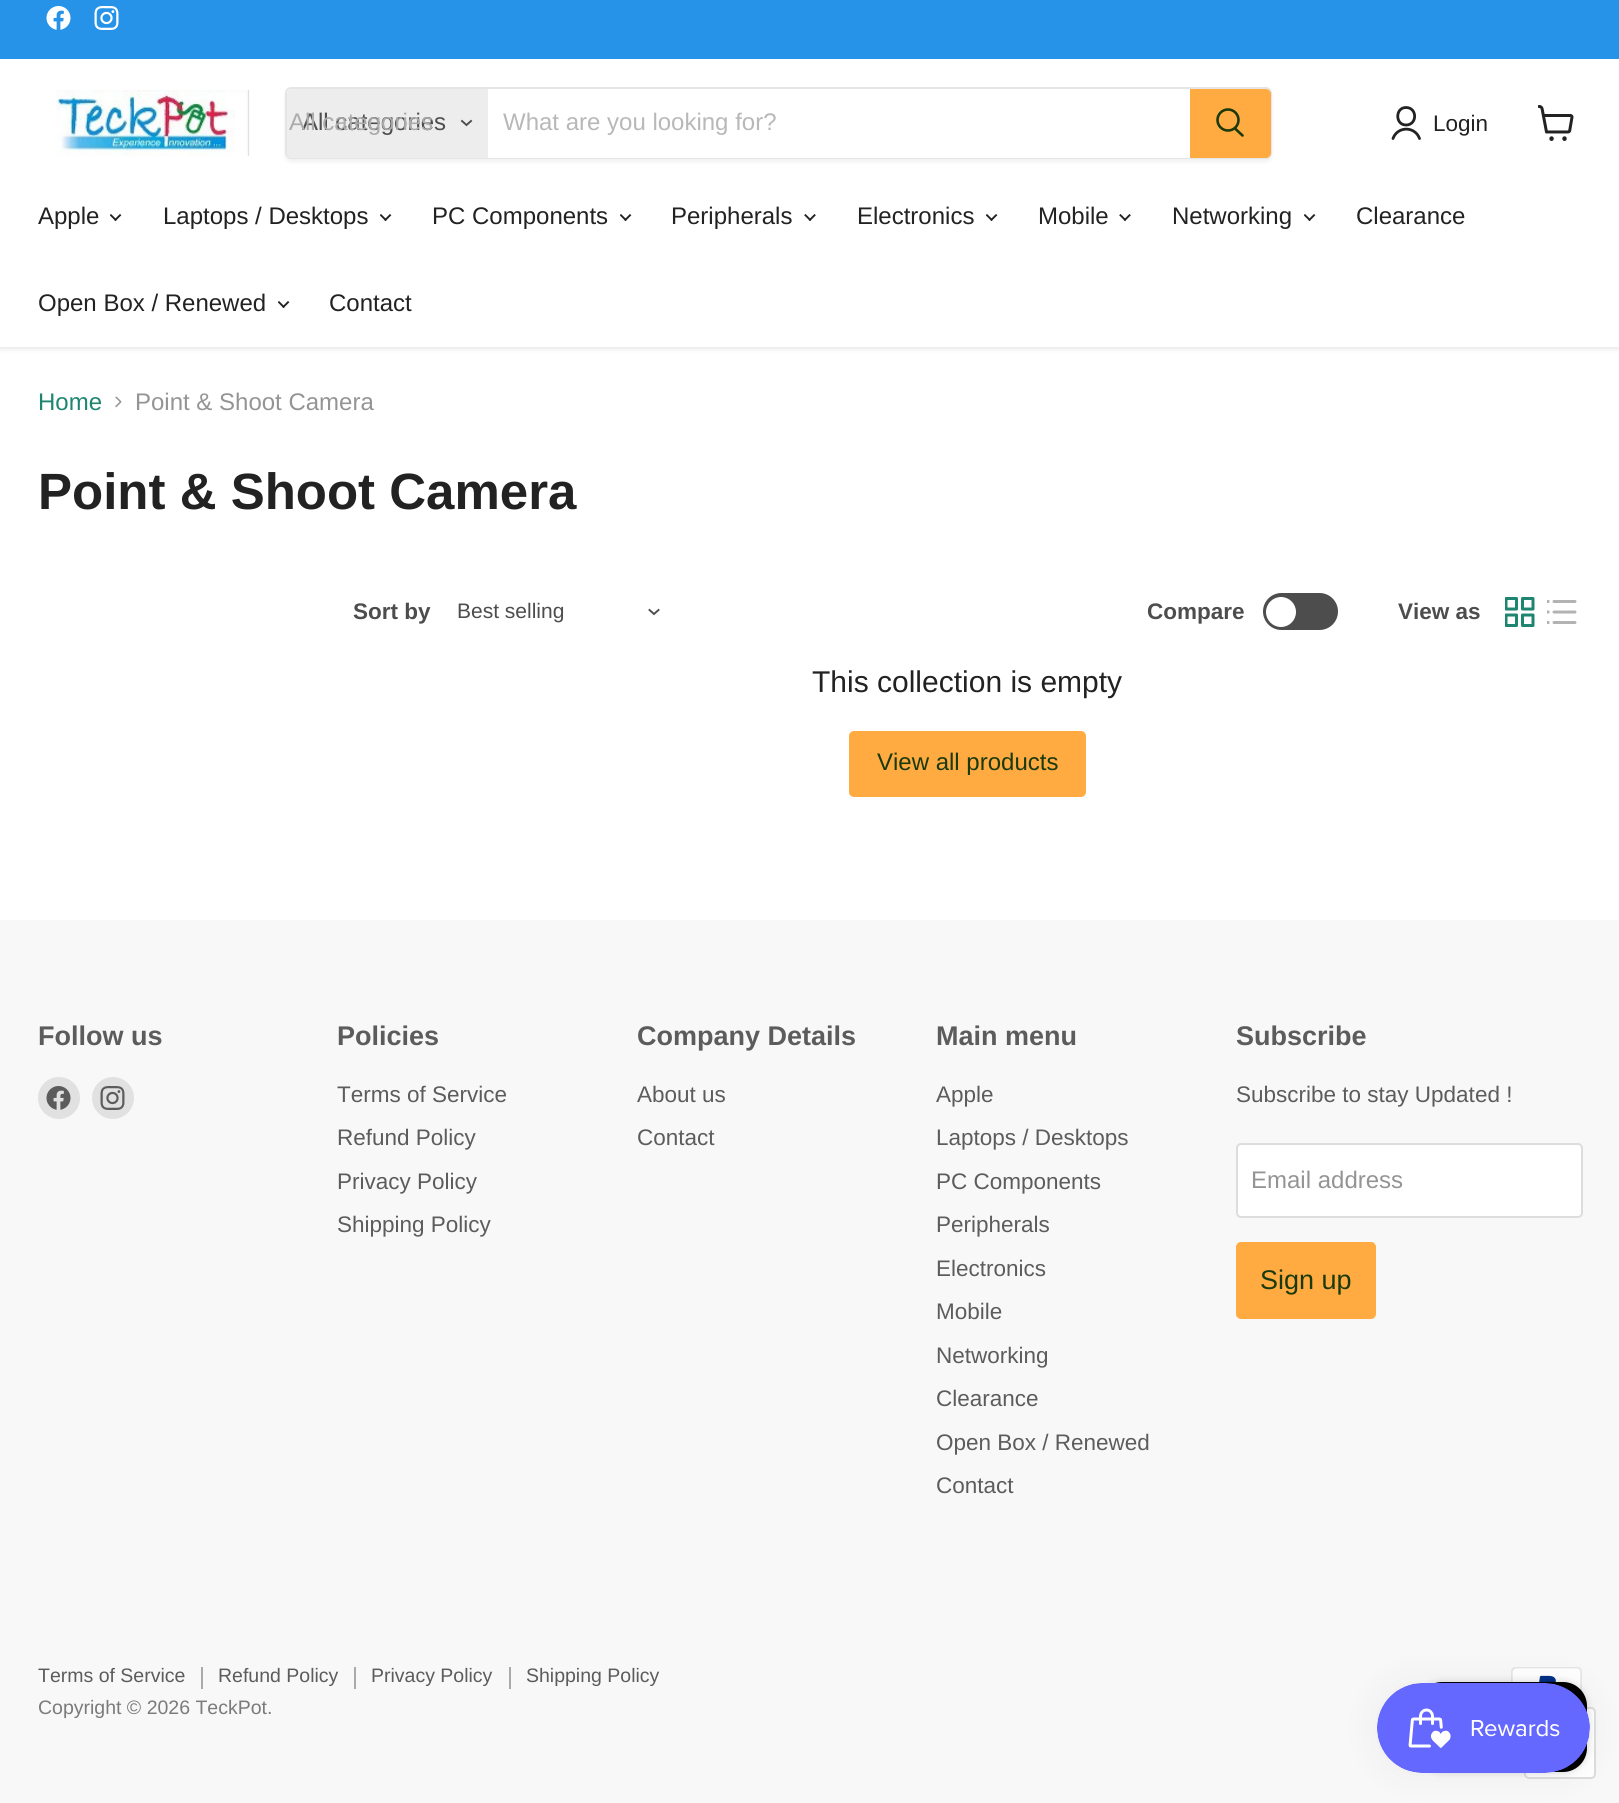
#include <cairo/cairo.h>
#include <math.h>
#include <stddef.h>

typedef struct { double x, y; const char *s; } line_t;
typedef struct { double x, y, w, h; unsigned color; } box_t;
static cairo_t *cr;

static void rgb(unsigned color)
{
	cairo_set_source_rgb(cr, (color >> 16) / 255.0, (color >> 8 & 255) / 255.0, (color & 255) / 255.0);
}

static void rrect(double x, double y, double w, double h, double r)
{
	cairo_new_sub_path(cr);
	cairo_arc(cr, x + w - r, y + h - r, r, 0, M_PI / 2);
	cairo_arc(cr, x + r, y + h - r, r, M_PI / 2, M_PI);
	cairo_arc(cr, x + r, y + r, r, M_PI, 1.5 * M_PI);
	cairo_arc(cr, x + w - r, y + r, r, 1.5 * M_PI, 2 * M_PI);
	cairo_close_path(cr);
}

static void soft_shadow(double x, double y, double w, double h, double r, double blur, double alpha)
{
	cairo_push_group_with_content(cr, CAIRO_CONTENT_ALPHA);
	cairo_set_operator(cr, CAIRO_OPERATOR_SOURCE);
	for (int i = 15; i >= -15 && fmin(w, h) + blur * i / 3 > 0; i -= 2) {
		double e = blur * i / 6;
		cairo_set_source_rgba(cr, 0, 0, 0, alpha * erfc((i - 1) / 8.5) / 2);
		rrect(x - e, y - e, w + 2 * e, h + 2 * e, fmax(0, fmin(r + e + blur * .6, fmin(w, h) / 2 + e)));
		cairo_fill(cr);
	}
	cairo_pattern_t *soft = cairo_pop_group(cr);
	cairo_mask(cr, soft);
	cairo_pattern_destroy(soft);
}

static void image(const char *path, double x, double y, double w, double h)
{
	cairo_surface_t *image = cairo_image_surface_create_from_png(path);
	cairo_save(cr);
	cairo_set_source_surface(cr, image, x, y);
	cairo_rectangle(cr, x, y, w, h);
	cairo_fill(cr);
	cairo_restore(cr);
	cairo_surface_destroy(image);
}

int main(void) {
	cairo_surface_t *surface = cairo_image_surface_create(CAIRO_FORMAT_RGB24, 1619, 1803);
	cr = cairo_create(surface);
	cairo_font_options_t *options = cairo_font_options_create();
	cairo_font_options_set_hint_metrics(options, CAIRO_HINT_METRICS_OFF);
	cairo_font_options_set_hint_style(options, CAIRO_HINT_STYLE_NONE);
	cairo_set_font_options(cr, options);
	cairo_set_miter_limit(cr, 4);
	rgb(0xffffff);
	cairo_paint(cr);
	rgb(0x808080);
	soft_shadow(0, 60, 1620, 288, 0, 3, 0.25);
	rgb(0x2693e9);
	cairo_rectangle(cr, 0, 0, 1619, 59);
	cairo_fill(cr);
	image("img/1.png", 46, 6, 25, 24);
	image("img/2.png", 94, 6, 25, 24);
	rgb(0xffffff);
	cairo_rectangle(cr, 0, 59, 1619, 288);
	cairo_fill(cr);
	image("img/3.png", 56, 90, 194, 66);
	cairo_save(cr);
	cairo_set_fill_rule(cr, CAIRO_FILL_RULE_EVEN_ODD);
	cairo_new_path(cr);
	cairo_move_to(cr, 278, 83);
	cairo_line_to(cr, 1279, 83);
	cairo_line_to(cr, 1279, 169);
	cairo_line_to(cr, 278, 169);
	cairo_close_path(cr);
	cairo_move_to(cr, 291, 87);
	cairo_line_to(cr, 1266, 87);
	cairo_curve_to(cr, 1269.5, 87, 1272, 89.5, 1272, 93);
	cairo_line_to(cr, 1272, 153);
	cairo_curve_to(cr, 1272, 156.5, 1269.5, 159, 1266, 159);
	cairo_line_to(cr, 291, 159);
	cairo_curve_to(cr, 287.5, 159, 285, 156.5, 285, 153);
	cairo_line_to(cr, 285, 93);
	cairo_curve_to(cr, 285, 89.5, 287.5, 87, 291, 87);
	cairo_close_path(cr);
	cairo_clip(cr);
	rgb(0x808080);
	soft_shadow(285, 90, 987, 72, 6, 2, 0.11);
	cairo_restore(cr);
	rrect(286, 88, 985, 70, 5);
	cairo_set_source_rgba(cr, 0.502, 0.502, 0.502, 0.2);
	cairo_stroke(cr);
	rgb(0xededed);
	cairo_new_path(cr);
	cairo_move_to(cr, 292, 89);
	cairo_line_to(cr, 488, 89);
	cairo_line_to(cr, 488, 158);
	cairo_line_to(cr, 292, 158);
	cairo_curve_to(cr, 289, 158, 287, 156, 287, 153);
	cairo_line_to(cr, 287, 94);
	cairo_curve_to(cr, 287, 91, 289, 89, 292, 89);
	cairo_close_path(cr);
	cairo_fill(cr);
	cairo_new_path(cr);
	cairo_move_to(cr, 466.5, 125);
	cairo_line_to(cr, 471, 121);
	cairo_move_to(cr, 466.5, 125);
	cairo_line_to(cr, 462, 121);
	rgb(0x4d4d4d);
	cairo_set_line_width(cr, 1.9);
	cairo_set_line_cap(cr, CAIRO_LINE_CAP_SQUARE);
	cairo_stroke(cr);
	rgb(0xffffff);
	cairo_rectangle(cr, 488, 157, 702, 1);
	cairo_fill(cr);
	rgb(0xffab41);
	cairo_new_path(cr);
	cairo_move_to(cr, 1191, 90);
	cairo_line_to(cr, 1266, 90);
	cairo_curve_to(cr, 1268, 90, 1270, 92, 1270, 94);
	cairo_line_to(cr, 1270, 153);
	cairo_curve_to(cr, 1270, 155, 1268, 157, 1266, 157);
	cairo_line_to(cr, 1191, 157);
	cairo_close_path(cr);
	cairo_fill_preserve(cr);
	cairo_set_line_width(cr, 2);
	cairo_set_line_cap(cr, CAIRO_LINE_CAP_BUTT);
	cairo_stroke(cr);
	cairo_new_path(cr);
	cairo_move_to(cr, 1242.5, 135.5);
	cairo_line_to(cr, 1235, 128.5);
	rgb(0x1a390c);
	cairo_set_line_width(cr, 2.6);
	cairo_set_line_cap(cr, CAIRO_LINE_CAP_ROUND);
	cairo_stroke(cr);
	cairo_arc(cr, 1228, 120, 10.5, 0, 2 * M_PI);
	cairo_set_line_cap(cr, CAIRO_LINE_CAP_BUTT);
	cairo_stroke(cr);
	cairo_new_path(cr);
	cairo_move_to(cr, 1406, 125);
	cairo_curve_to(cr, 1417.5, 125, 1417.5, 107.5, 1406, 107.5);
	cairo_curve_to(cr, 1395, 107.5, 1395, 125, 1406, 125);
	cairo_close_path(cr);
	cairo_move_to(cr, 1419.5, 138.5);
	cairo_curve_to(cr, 1415, 126, 1397.5, 126, 1393, 138.5);
	rgb(0x222222);
	cairo_set_line_width(cr, 2.8);
	cairo_set_line_cap(cr, CAIRO_LINE_CAP_ROUND);
	cairo_set_line_join(cr, CAIRO_LINE_JOIN_ROUND);
	cairo_stroke(cr);
	image("img/4.png", 1538, 105, 36, 36);
	image("img/5.png", 110, 214, 12, 7);
	image("img/5.png", 380, 214, 12, 7);
	image("img/5.png", 620, 214, 12, 7);
	image("img/6.png", 804, 214, 12, 7);
	image("img/5.png", 986, 214, 12, 7);
	image("img/6.png", 1119, 214, 12, 7);
	image("img/5.png", 1304, 214, 12, 7);
	image("img/5.png", 278, 301, 12, 7);
	image("img/7.png", 115, 396, 7, 12);
	cairo_new_path(cr);
	cairo_move_to(cr, 654, 614);
	cairo_line_to(cr, 658.5, 610);
	cairo_move_to(cr, 654, 614);
	cairo_line_to(cr, 649.5, 610);
	rgb(0x4d4d4d);
	cairo_set_line_width(cr, 1.9);
	cairo_set_line_cap(cr, CAIRO_LINE_CAP_SQUARE);
	cairo_set_line_join(cr, CAIRO_LINE_JOIN_MITER);
	cairo_stroke(cr);
	rrect(1263, 593, 75, 37, 18.5);
	cairo_fill(cr);
	rgb(0xffffff);
	cairo_arc(cr, 1281, 612, 15, 0, 2 * M_PI);
	cairo_fill(cr);
	image("img/8.png", 1505, 597, 30, 30);
	image("img/9.png", 1547, 600, 30, 24);
	rgb(0xffab41);
	rrect(850, 732, 235, 64, 4);
	cairo_fill_preserve(cr);
	cairo_set_line_width(cr, 2);
	cairo_set_line_cap(cr, CAIRO_LINE_CAP_BUTT);
	cairo_stroke(cr);
	rgb(0xf8f8f8);
	cairo_rectangle(cr, 0, 920, 1619, 883);
	cairo_fill(cr);
	rgb(0xe1e1e1);
	cairo_arc(cr, 59, 1098, 21, 0, 2 * M_PI);
	cairo_fill(cr);
	image("img/10.png", 46, 1086, 25, 24);
	cairo_arc(cr, 113, 1098, 21, 0, 2 * M_PI);
	cairo_fill(cr);
	image("img/11.png", 100, 1086, 25, 24);
	rgb(0xffffff);
	rrect(1237, 1144, 345, 73, 4);
	cairo_fill_preserve(cr);
	rgb(0xdddddd);
	cairo_stroke(cr);
	rgb(0xffab41);
	rrect(1237, 1243, 138, 75, 4);
	cairo_fill_preserve(cr);
	cairo_stroke(cr);
	{
		static const box_t items[] = {
			{201, 1667, 2, 22, 0xaaaaaa},
			{354, 1667, 2, 22, 0xaaaaaa},
			{509, 1667, 2, 22, 0xaaaaaa},
		};
		for (size_t i = 0; i < sizeof items / sizeof *items; i++) {
			rgb(items[i].color);
			cairo_rectangle(cr, items[i].x, items[i].y, items[i].w, items[i].h);
			cairo_fill(cr);
		}
	}
	image("img/12.png", 1511, 1667, 71, 25);
	rgb(0xffffff);
	rrect(1525, 1708, 70, 70, 4);
	cairo_fill_preserve(cr);
	rgb(0xdddddd);
	cairo_stroke(cr);
	rgb(0x000000);
	soft_shadow(1418, 1682, 169, 90, 24, 4, 0.15);
	rgb(0x000000);
	rrect(1418, 1682, 169, 90, 24);
	cairo_fill(cr);
	rgb(0x000000);
	soft_shadow(1377, 1683, 213, 90, 45, 19, 0.05);
	image("img/13.png", 1377, 1683, 213, 90);
	cairo_select_font_face(cr, "Liberation Sans", CAIRO_FONT_SLANT_NORMAL, CAIRO_FONT_WEIGHT_NORMAL);
	cairo_set_font_size(cr, 24);
	rgb(0x4d4d4d);
	cairo_move_to(cr, 302, 130);
	cairo_show_text(cr, "All categories");
	rgb(0xababab);
	cairo_move_to(cr, 289, 130);
	cairo_show_text(cr, "All categories");
	rgb(0xb8b8b8);
	cairo_move_to(cr, 503, 130);
	cairo_show_text(cr, "What are you looking for?");
	cairo_set_font_size(cr, 22.5);
	rgb(0x222222);
	cairo_move_to(cr, 1433, 131);
	cairo_show_text(cr, "Login");
	cairo_set_font_size(cr, 24);
	{
		static const line_t items[] = {
			{38, 224, "Apple"},
			{163, 224, "Laptops / Desktops"},
			{432, 224, "PC Components"},
			{671, 224, "Peripherals"},
			{857, 224, "Electronics"},
			{1038, 224, "Mobile"},
			{1172, 224, "Networking"},
			{1356, 224, "Clearance"},
			{38, 311, "Open Box / Renewed"},
			{329, 311, "Contact"},
		};
		for (size_t i = 0; i < sizeof items / sizeof *items; i++) {
			cairo_move_to(cr, items[i].x, items[i].y);
			cairo_show_text(cr, items[i].s);
		}
	}
	rgb(0x1e8570);
	cairo_move_to(cr, 38, 410);
	cairo_show_text(cr, "Home");
	rgb(0x949494);
	cairo_move_to(cr, 135, 410);
	cairo_show_text(cr, "Point & Shoot Camera");
	cairo_select_font_face(cr, "Liberation Sans", CAIRO_FONT_SLANT_NORMAL, CAIRO_FONT_WEIGHT_BOLD);
	cairo_set_font_size(cr, 51);
	rgb(0x222222);
	cairo_move_to(cr, 38, 509);
	cairo_show_text(cr, "Point & Shoot Camera");
	cairo_set_font_size(cr, 22.5);
	rgb(0x4d4d4d);
	cairo_move_to(cr, 353, 619);
	cairo_show_text(cr, "Sort by");
	cairo_select_font_face(cr, "Liberation Sans", CAIRO_FONT_SLANT_NORMAL, CAIRO_FONT_WEIGHT_NORMAL);
	cairo_set_font_size(cr, 21);
	cairo_move_to(cr, 457, 618);
	cairo_show_text(cr, "Best selling");
	cairo_select_font_face(cr, "Liberation Sans", CAIRO_FONT_SLANT_NORMAL, CAIRO_FONT_WEIGHT_BOLD);
	cairo_set_font_size(cr, 22.5);
	cairo_move_to(cr, 1147, 619);
	cairo_show_text(cr, "Compare");
	cairo_move_to(cr, 1398, 619);
	cairo_show_text(cr, "View as");
	cairo_select_font_face(cr, "Liberation Sans", CAIRO_FONT_SLANT_NORMAL, CAIRO_FONT_WEIGHT_NORMAL);
	cairo_set_font_size(cr, 30);
	rgb(0x222222);
	cairo_move_to(cr, 812, 692);
	cairo_show_text(cr, "This collection is empty");
	cairo_set_font_size(cr, 24);
	rgb(0x1a390c);
	cairo_move_to(cr, 877, 770);
	cairo_show_text(cr, "View all products");
	cairo_select_font_face(cr, "Liberation Sans", CAIRO_FONT_SLANT_NORMAL, CAIRO_FONT_WEIGHT_BOLD);
	cairo_set_font_size(cr, 27);
	rgb(0x5c5c5c);
	cairo_move_to(cr, 38, 1045);
	cairo_show_text(cr, "Follow us");
	cairo_move_to(cr, 337, 1045);
	cairo_show_text(cr, "Policies");
	cairo_select_font_face(cr, "Liberation Sans", CAIRO_FONT_SLANT_NORMAL, CAIRO_FONT_WEIGHT_NORMAL);
	cairo_set_font_size(cr, 22.5);
	{
		static const line_t items[] = {
			{337, 1102, "Terms of Service"},
			{337, 1145, "Refund Policy"},
			{337, 1189, "Privacy Policy"},
			{337, 1232, "Shipping Policy"},
		};
		for (size_t i = 0; i < sizeof items / sizeof *items; i++) {
			cairo_move_to(cr, items[i].x, items[i].y);
			cairo_show_text(cr, items[i].s);
		}
	}
	cairo_select_font_face(cr, "Liberation Sans", CAIRO_FONT_SLANT_NORMAL, CAIRO_FONT_WEIGHT_BOLD);
	cairo_set_font_size(cr, 27);
	cairo_move_to(cr, 637, 1045);
	cairo_show_text(cr, "Company Details");
	cairo_select_font_face(cr, "Liberation Sans", CAIRO_FONT_SLANT_NORMAL, CAIRO_FONT_WEIGHT_NORMAL);
	cairo_set_font_size(cr, 22.5);
	cairo_move_to(cr, 637, 1102);
	cairo_show_text(cr, "About us");
	cairo_move_to(cr, 637, 1145);
	cairo_show_text(cr, "Contact");
	cairo_select_font_face(cr, "Liberation Sans", CAIRO_FONT_SLANT_NORMAL, CAIRO_FONT_WEIGHT_BOLD);
	cairo_set_font_size(cr, 27);
	cairo_move_to(cr, 936, 1045);
	cairo_show_text(cr, "Main menu");
	cairo_select_font_face(cr, "Liberation Sans", CAIRO_FONT_SLANT_NORMAL, CAIRO_FONT_WEIGHT_NORMAL);
	cairo_set_font_size(cr, 22.5);
	{
		static const line_t items[] = {
			{936, 1102, "Apple"},
			{936, 1145, "Laptops / Desktops"},
			{936, 1189, "PC Components"},
			{936, 1232, "Peripherals"},
			{936, 1276, "Electronics"},
			{936, 1319, "Mobile"},
			{936, 1363, "Networking"},
			{936, 1406, "Clearance"},
			{936, 1450, "Open Box / Renewed"},
			{936, 1493, "Contact"},
		};
		for (size_t i = 0; i < sizeof items / sizeof *items; i++) {
			cairo_move_to(cr, items[i].x, items[i].y);
			cairo_show_text(cr, items[i].s);
		}
	}
	cairo_select_font_face(cr, "Liberation Sans", CAIRO_FONT_SLANT_NORMAL, CAIRO_FONT_WEIGHT_BOLD);
	cairo_set_font_size(cr, 27);
	cairo_move_to(cr, 1236, 1045);
	cairo_show_text(cr, "Subscribe");
	cairo_select_font_face(cr, "Liberation Sans", CAIRO_FONT_SLANT_NORMAL, CAIRO_FONT_WEIGHT_NORMAL);
	cairo_set_font_size(cr, 22.5);
	cairo_move_to(cr, 1236, 1102);
	cairo_show_text(cr, "Subscribe to stay Updated !");
	cairo_set_font_size(cr, 24);
	rgb(0x949494);
	cairo_move_to(cr, 1251, 1188);
	cairo_show_text(cr, "Email address");
	cairo_set_font_size(cr, 27);
	rgb(0x1a390c);
	cairo_move_to(cr, 1260, 1289);
	cairo_show_text(cr, "Sign up");
	cairo_set_font_size(cr, 19.5);
	rgb(0x5c5c5c);
	{
		static const line_t items[] = {
			{38, 1682, "Terms of Service"},
			{218, 1682, "Refund Policy"},
			{371, 1682, "Privacy Policy"},
			{526, 1682, "Shipping Policy"},
		};
		for (size_t i = 0; i < sizeof items / sizeof *items; i++) {
			cairo_move_to(cr, items[i].x, items[i].y);
			cairo_show_text(cr, items[i].s);
		}
	}
	rgb(0x7b7b7b);
	cairo_move_to(cr, 38, 1714);
	cairo_show_text(cr, "Copyright © 2026 TeckPot.");
	cairo_surface_write_to_png(surface, "page.png");
	cairo_font_options_destroy(options);
	cairo_destroy(cr);
	cairo_surface_destroy(surface);
	return 0;
}
